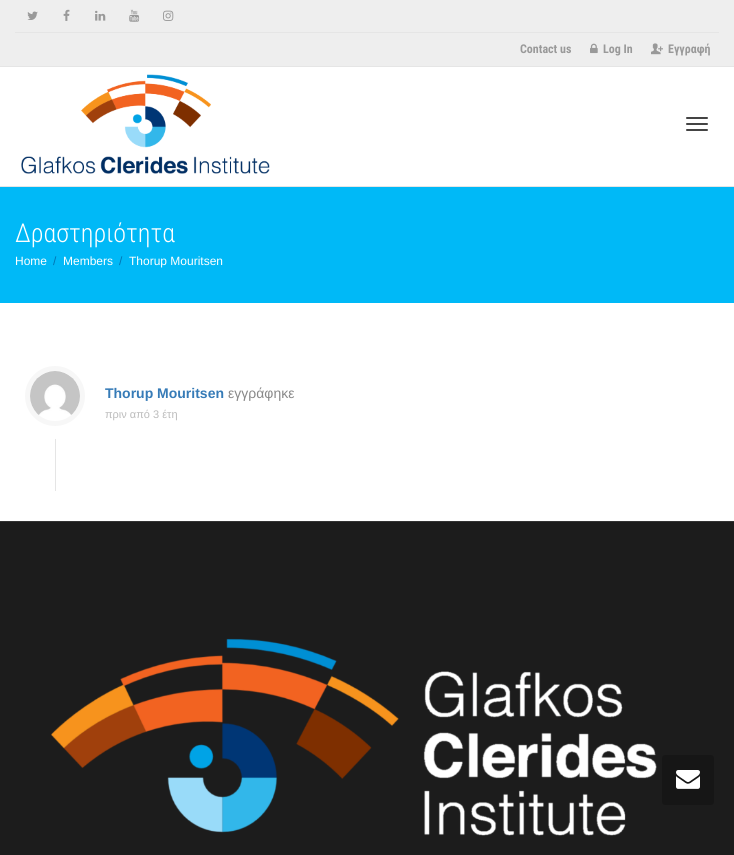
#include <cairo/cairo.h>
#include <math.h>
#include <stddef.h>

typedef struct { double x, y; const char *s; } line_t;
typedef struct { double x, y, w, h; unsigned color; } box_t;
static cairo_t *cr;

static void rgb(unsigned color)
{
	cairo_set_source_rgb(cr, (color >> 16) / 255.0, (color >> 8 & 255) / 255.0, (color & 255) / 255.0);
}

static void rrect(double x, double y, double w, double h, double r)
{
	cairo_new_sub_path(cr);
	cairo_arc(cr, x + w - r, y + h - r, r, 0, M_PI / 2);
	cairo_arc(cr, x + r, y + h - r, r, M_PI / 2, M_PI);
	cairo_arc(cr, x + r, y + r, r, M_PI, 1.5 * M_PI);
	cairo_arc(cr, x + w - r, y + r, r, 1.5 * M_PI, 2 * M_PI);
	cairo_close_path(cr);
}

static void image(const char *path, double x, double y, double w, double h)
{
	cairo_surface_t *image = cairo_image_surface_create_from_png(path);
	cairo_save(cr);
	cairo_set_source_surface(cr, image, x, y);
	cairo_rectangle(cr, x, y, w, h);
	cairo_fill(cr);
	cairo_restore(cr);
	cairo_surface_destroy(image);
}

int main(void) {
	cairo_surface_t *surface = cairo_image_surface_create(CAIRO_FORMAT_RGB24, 734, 855);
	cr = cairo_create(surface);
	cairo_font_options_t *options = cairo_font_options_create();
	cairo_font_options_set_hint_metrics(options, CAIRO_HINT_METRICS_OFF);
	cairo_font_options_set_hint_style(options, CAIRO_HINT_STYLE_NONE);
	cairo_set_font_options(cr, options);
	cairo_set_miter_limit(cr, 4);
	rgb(0xffffff);
	cairo_paint(cr);
	{
		static const box_t items[] = {
			{0, 0, 734, 66, 0xeeeeee},
			{0, 66, 734, 1, 0xe5e5e5},
			{15, 32, 704, 1, 0xe5e5e5},
		};
		for (size_t i = 0; i < sizeof items / sizeof *items; i++) {
			rgb(items[i].color);
			cairo_rectangle(cr, items[i].x, items[i].y, items[i].w, items[i].h);
			cairo_fill(cr);
		}
	}
	image("img/1.png", 27, 11, 11, 9);
	image("img/2.png", 63, 9, 7, 12);
	image("img/3.png", 95, 10, 11, 11);
	image("img/4.png", 129, 9, 11, 13);
	image("img/5.png", 163, 10, 11, 11);
	image("img/6.png", 590, 43, 8, 11);
	image("img/7.png", 651, 43, 12, 12);
	cairo_rectangle(cr, 0, 186, 734, 1);
	cairo_fill(cr);
	image("img/8.png", 21, 74, 249, 100);
	rgb(0x444444);
	rrect(686, 117, 22, 2, 1);
	cairo_fill(cr);
	rrect(686, 123, 22, 2, 1);
	cairo_fill(cr);
	rrect(686, 129, 22, 2, 1);
	cairo_fill(cr);
	rgb(0x00b9f7);
	cairo_rectangle(cr, 0, 187, 734, 116);
	cairo_fill(cr);
	rgb(0xe5e5e5);
	cairo_rectangle(cr, 55, 425, 1, 66);
	cairo_fill(cr);
	cairo_arc(cr, 55, 396, 36.5, 0, 2 * M_PI);
	rgb(0xffffff);
	cairo_set_line_width(cr, 13);
	cairo_stroke(cr);
	cairo_arc(cr, 55, 396, 27.5, 0, 2 * M_PI);
	cairo_fill_preserve(cr);
	rgb(0xf7f7f7);
	cairo_set_line_width(cr, 5);
	cairo_stroke(cr);
	image("img/9.png", 30, 371, 50, 44);
	rgb(0x1c1c1c);
	cairo_rectangle(cr, 0, 522, 734, 333);
	cairo_fill(cr);
	rgb(0x333333);
	cairo_rectangle(cr, 0, 521, 734, 1);
	cairo_fill(cr);
	image("img/10.png", 51, 638, 606, 198);
	rgb(0x161616);
	rrect(662, 755, 52, 50, 3);
	cairo_fill(cr);
	image("img/11.png", 676, 770, 24, 19);
	cairo_select_font_face(cr, "Roboto Condensed", CAIRO_FONT_SLANT_NORMAL, CAIRO_FONT_WEIGHT_BOLD);
	cairo_set_font_size(cr, 12);
	rgb(0x999999);
	{
		static const line_t items[] = {
			{520, 53, "Contact us"},
			{603, 53, "Log In"},
			{668, 53, "Εγγραφή"},
		};
		for (size_t i = 0; i < sizeof items / sizeof *items; i++) {
			cairo_move_to(cr, items[i].x, items[i].y);
			cairo_show_text(cr, items[i].s);
		}
	}
	cairo_select_font_face(cr, "Roboto Condensed Light", CAIRO_FONT_SLANT_NORMAL, CAIRO_FONT_WEIGHT_NORMAL);
	cairo_set_font_size(cr, 26);
	rgb(0xffffff);
	cairo_move_to(cr, 15, 242);
	cairo_show_text(cr, "Δραστηριότητα");
	cairo_select_font_face(cr, "Liberation Sans", CAIRO_FONT_SLANT_NORMAL, CAIRO_FONT_WEIGHT_NORMAL);
	cairo_set_font_size(cr, 12);
	cairo_move_to(cr, 15, 265);
	cairo_show_text(cr, "Home");
	rgb(0x0075b3);
	cairo_move_to(cr, 53, 265);
	cairo_show_text(cr, "/");
	rgb(0xffffff);
	cairo_move_to(cr, 63, 265);
	cairo_show_text(cr, "Members");
	rgb(0x0075b3);
	cairo_move_to(cr, 119, 265);
	cairo_show_text(cr, "/");
	rgb(0xffffff);
	cairo_move_to(cr, 129, 265);
	cairo_show_text(cr, "Thorup Mouritsen");
	cairo_select_font_face(cr, "Liberation Sans", CAIRO_FONT_SLANT_NORMAL, CAIRO_FONT_WEIGHT_BOLD);
	cairo_set_font_size(cr, 14);
	rgb(0x367bb7);
	cairo_move_to(cr, 105, 398);
	cairo_show_text(cr, "Thorup Mouritsen");
	cairo_select_font_face(cr, "Liberation Sans", CAIRO_FONT_SLANT_NORMAL, CAIRO_FONT_WEIGHT_NORMAL);
	rgb(0x888888);
	cairo_move_to(cr, 228, 398);
	cairo_show_text(cr, "εγγράφηκε");
	cairo_set_font_size(cr, 11);
	rgb(0xbbbbbb);
	cairo_move_to(cr, 105, 418);
	cairo_show_text(cr, "πριν από 3 έτη");
	cairo_surface_write_to_png(surface, "page.png");
	cairo_font_options_destroy(options);
	cairo_destroy(cr);
	cairo_surface_destroy(surface);
	return 0;
}
